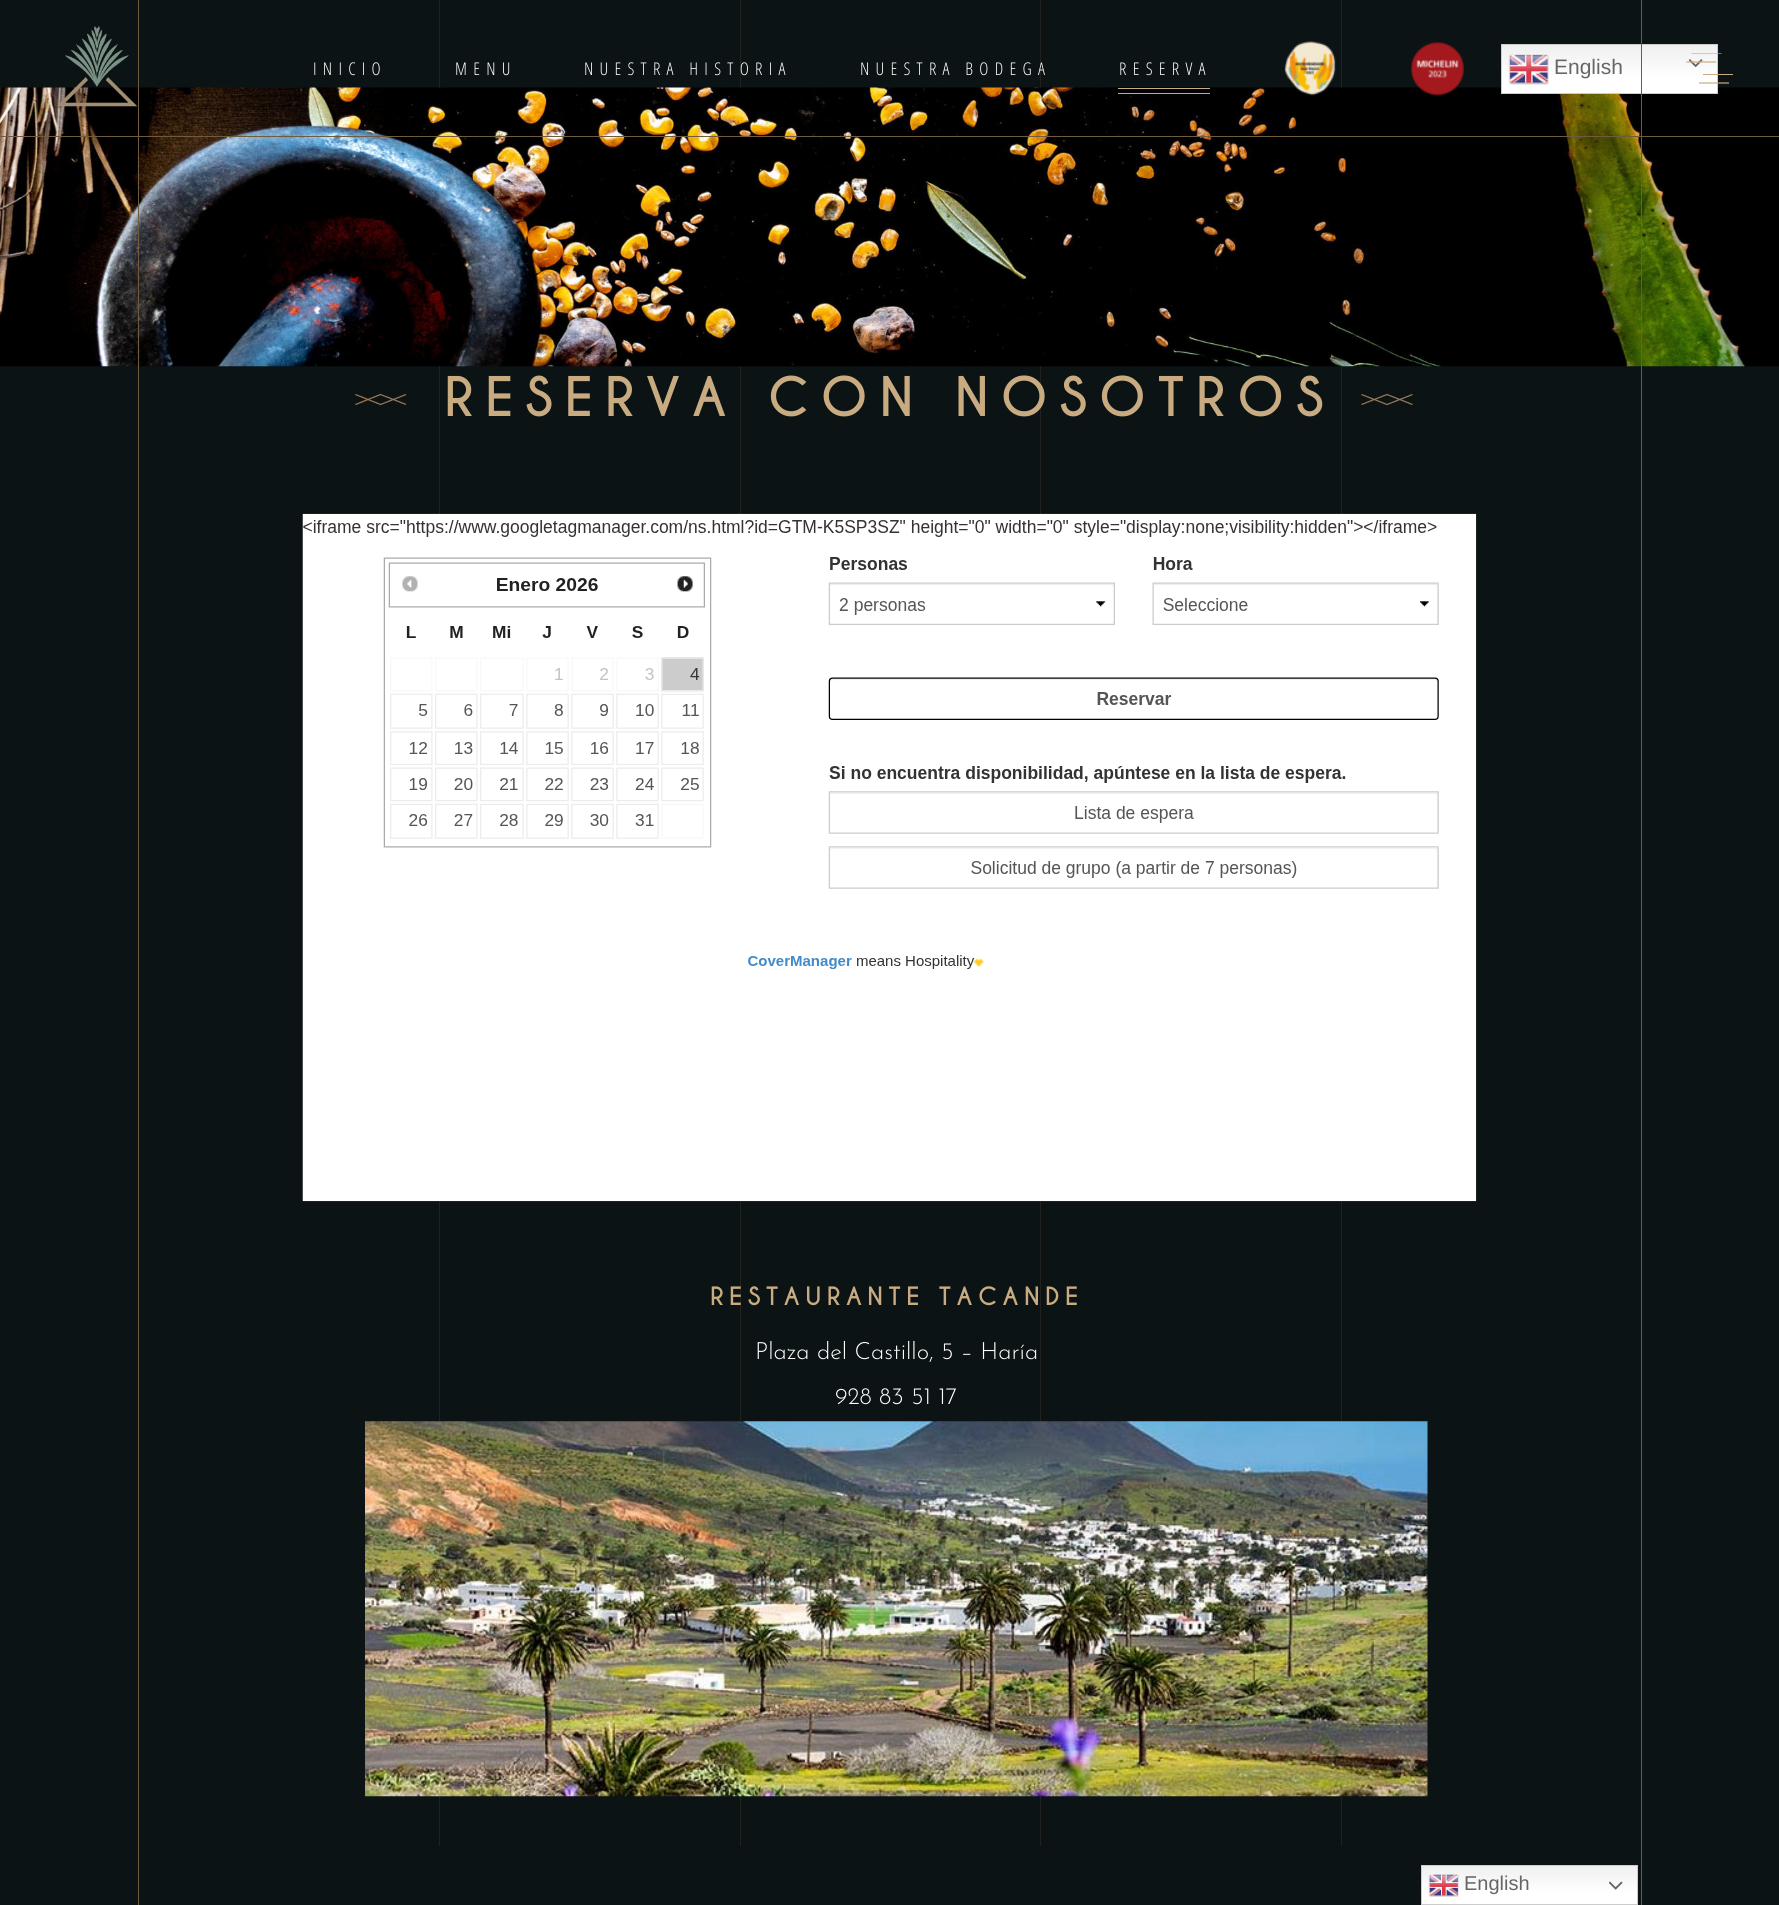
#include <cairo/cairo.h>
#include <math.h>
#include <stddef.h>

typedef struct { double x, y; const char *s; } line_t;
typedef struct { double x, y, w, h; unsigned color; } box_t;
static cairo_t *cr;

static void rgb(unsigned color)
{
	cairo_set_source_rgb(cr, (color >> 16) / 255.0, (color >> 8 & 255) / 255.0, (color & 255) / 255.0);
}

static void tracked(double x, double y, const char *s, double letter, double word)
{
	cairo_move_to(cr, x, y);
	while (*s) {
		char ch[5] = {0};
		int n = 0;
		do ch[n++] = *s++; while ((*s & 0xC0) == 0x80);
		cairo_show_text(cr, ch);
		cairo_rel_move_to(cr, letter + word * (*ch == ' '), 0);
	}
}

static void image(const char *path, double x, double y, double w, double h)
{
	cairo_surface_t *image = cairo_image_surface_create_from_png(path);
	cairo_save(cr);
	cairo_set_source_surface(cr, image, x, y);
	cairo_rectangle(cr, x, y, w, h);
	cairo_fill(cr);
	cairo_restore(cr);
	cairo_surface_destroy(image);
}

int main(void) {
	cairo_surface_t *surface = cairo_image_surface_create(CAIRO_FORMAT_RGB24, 1779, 1905);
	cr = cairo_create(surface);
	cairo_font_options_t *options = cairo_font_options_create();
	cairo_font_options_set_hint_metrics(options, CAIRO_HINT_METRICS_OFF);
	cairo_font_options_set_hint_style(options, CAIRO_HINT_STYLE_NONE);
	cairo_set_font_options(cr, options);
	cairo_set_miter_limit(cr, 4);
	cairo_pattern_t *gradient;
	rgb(0x0b1315);
	cairo_paint(cr);
	{
		static const box_t items[] = {
			{439, 0, 1, 1846, 0x21221e},
			{740, 0, 1, 1846, 0x21221e},
			{1040, 0, 1, 1846, 0x21221e},
			{1341, 0, 1, 1846, 0x21221e},
		};
		for (size_t i = 0; i < sizeof items / sizeof *items; i++) {
			rgb(items[i].color);
			cairo_rectangle(cr, items[i].x, items[i].y, items[i].w, items[i].h);
			cairo_fill(cr);
		}
	}
	image("img/6.png", 0, 87, 1779, 280);
	rgb(0x715b3e);
	cairo_rectangle(cr, 0, 136, 1779, 1);
	cairo_fill(cr);
	cairo_rectangle(cr, 138, 0, 1, 138);
	cairo_fill(cr);
	image("img/1.png", 57, 26, 81, 81);
	rgb(0xc9ab81);
	cairo_rectangle(cr, 1118, 88, 92, 1);
	cairo_fill(cr);
	cairo_rectangle(cr, 1118, 93, 92, 1);
	cairo_fill(cr);
	image("img/2.png", 1284, 41, 52, 55);
	image("img/3.png", 1410, 42, 55, 54);
	gradient = cairo_pattern_create_linear(1609, 44, 1609, 94);
	cairo_pattern_add_color_stop_rgba(gradient, 0, 0.937, 0.937, 0.937, 1);
	cairo_pattern_add_color_stop_rgba(gradient, 0.7, 1, 1, 1, 1);
	cairo_set_source(cr, gradient);
	cairo_pattern_destroy(gradient);
	cairo_rectangle(cr, 1502, 45, 215, 48);
	cairo_fill(cr);
	cairo_rectangle(cr, 1501.5, 44.5, 216, 49);
	rgb(0xcccccc);
	cairo_set_line_width(cr, 1);
	cairo_stroke(cr);
	image("img/4.png", 1508, 54, 41, 31);
	image("img/5.png", 1689, 59, 14, 9);
	cairo_save(cr);
	cairo_rectangle(cr, 1686, 53, 47, 31);
	cairo_clip(cr);
	cairo_new_path(cr);
	cairo_move_to(cr, 1691.5, 53);
	cairo_line_to(cr, 1721.5, 53);
	rgb(0xc9ab81);
	cairo_set_line_width(cr, 1.2);
	cairo_stroke(cr);
	cairo_restore(cr);
	cairo_new_path(cr);
	cairo_move_to(cr, 1686.5, 62);
	cairo_line_to(cr, 1716, 62);
	rgb(0xc9ab81);
	cairo_set_line_width(cr, 1.2);
	cairo_stroke(cr);
	cairo_rectangle(cr, 1703, 74, 30, 1);
	cairo_fill(cr);
	cairo_new_path(cr);
	cairo_move_to(cr, 1699, 83);
	cairo_line_to(cr, 1729, 83);
	cairo_stroke(cr);
	rgb(0x715b3e);
	cairo_rectangle(cr, 1641, 0, 1, 138);
	cairo_fill(cr);
	cairo_rectangle(cr, 138, 138, 1, 1767);
	cairo_fill(cr);
	cairo_new_path(cr);
	cairo_move_to(cr, 406, 404.5);
	cairo_line_to(cr, 380.5, 394.5);
	cairo_line_to(cr, 355.5, 404.5);
	cairo_move_to(cr, 406, 394.5);
	cairo_line_to(cr, 380.5, 404.5);
	cairo_line_to(cr, 355.5, 394.5);
	rgb(0x9c7c57);
	cairo_stroke(cr);
	cairo_new_path(cr);
	cairo_move_to(cr, 1412.5, 404.5);
	cairo_line_to(cr, 1387, 394.5);
	cairo_line_to(cr, 1361.5, 404.5);
	cairo_move_to(cr, 1412.5, 394.5);
	cairo_line_to(cr, 1387, 404.5);
	cairo_line_to(cr, 1361.5, 394.5);
	cairo_stroke(cr);
	image("img/7.png", 302, 513, 1175, 689);
	image("img/8.png", 365, 1421, 1063, 376);
	rgb(0x715b3e);
	cairo_rectangle(cr, 1641, 138, 1, 1767);
	cairo_fill(cr);
	gradient = cairo_pattern_create_linear(1529, 1865, 1529, 1905);
	cairo_pattern_add_color_stop_rgba(gradient, 0, 0.937, 0.937, 0.937, 1);
	cairo_pattern_add_color_stop_rgba(gradient, 0.7, 1, 1, 1, 1);
	cairo_set_source(cr, gradient);
	cairo_pattern_destroy(gradient);
	cairo_rectangle(cr, 1422, 1866, 215, 38);
	cairo_fill(cr);
	cairo_rectangle(cr, 1421.5, 1865.5, 216, 39);
	rgb(0xcccccc);
	cairo_set_line_width(cr, 1);
	cairo_stroke(cr);
	image("img/9.png", 1428, 1874, 31, 23);
	image("img/10.png", 1609, 1881, 14, 9);
	cairo_select_font_face(cr, "Open Sans Condensed Light", CAIRO_FONT_SLANT_NORMAL, CAIRO_FONT_WEIGHT_NORMAL);
	cairo_set_font_size(cr, 17.5);
	rgb(0xffffff);
	{
		static const line_t items[] = {
			{313, 75, "INICIO"},
			{455, 75, "MENU"},
			{584, 75, "NUESTRA HISTORIA"},
			{860, 75, "NUESTRA BODEGA"},
			{1119, 75, "RESERVA"},
		};
		for (size_t i = 0; i < sizeof items / sizeof *items; i++) {
			tracked(items[i].x, items[i].y, items[i].s, 6.25, 0);
		}
	}
	cairo_select_font_face(cr, "Liberation Sans", CAIRO_FONT_SLANT_NORMAL, CAIRO_FONT_WEIGHT_NORMAL);
	cairo_set_font_size(cr, 21);
	rgb(0x666666);
	cairo_move_to(cr, 1554, 74);
	cairo_show_text(cr, "English");
	cairo_select_font_face(cr, "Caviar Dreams", CAIRO_FONT_SLANT_NORMAL, CAIRO_FONT_WEIGHT_BOLD);
	cairo_set_font_size(cr, 51.25);
	rgb(0xc9ab81);
	tracked(444, 416, "RESERVA CON NOSOTROS", 11.75, 0);
	cairo_set_font_size(cr, 23.75);
	tracked(710, 1305, "RESTAURANTE TACANDE", 5.5, 0);
	cairo_select_font_face(cr, "Josefin Sans Light", CAIRO_FONT_SLANT_NORMAL, CAIRO_FONT_WEIGHT_NORMAL);
	rgb(0xffffff);
	cairo_move_to(cr, 755, 1359);
	cairo_show_text(cr, "Plaza del Castillo, 5 – Haría");
	cairo_move_to(cr, 835, 1404);
	cairo_show_text(cr, "928 83 51 17");
	cairo_select_font_face(cr, "Liberation Sans", CAIRO_FONT_SLANT_NORMAL, CAIRO_FONT_WEIGHT_NORMAL);
	cairo_set_font_size(cr, 20);
	rgb(0x666666);
	cairo_move_to(cr, 1464, 1890);
	cairo_show_text(cr, "English");
	cairo_surface_write_to_png(surface, "page.png");
	cairo_font_options_destroy(options);
	cairo_destroy(cr);
	cairo_surface_destroy(surface);
	return 0;
}
